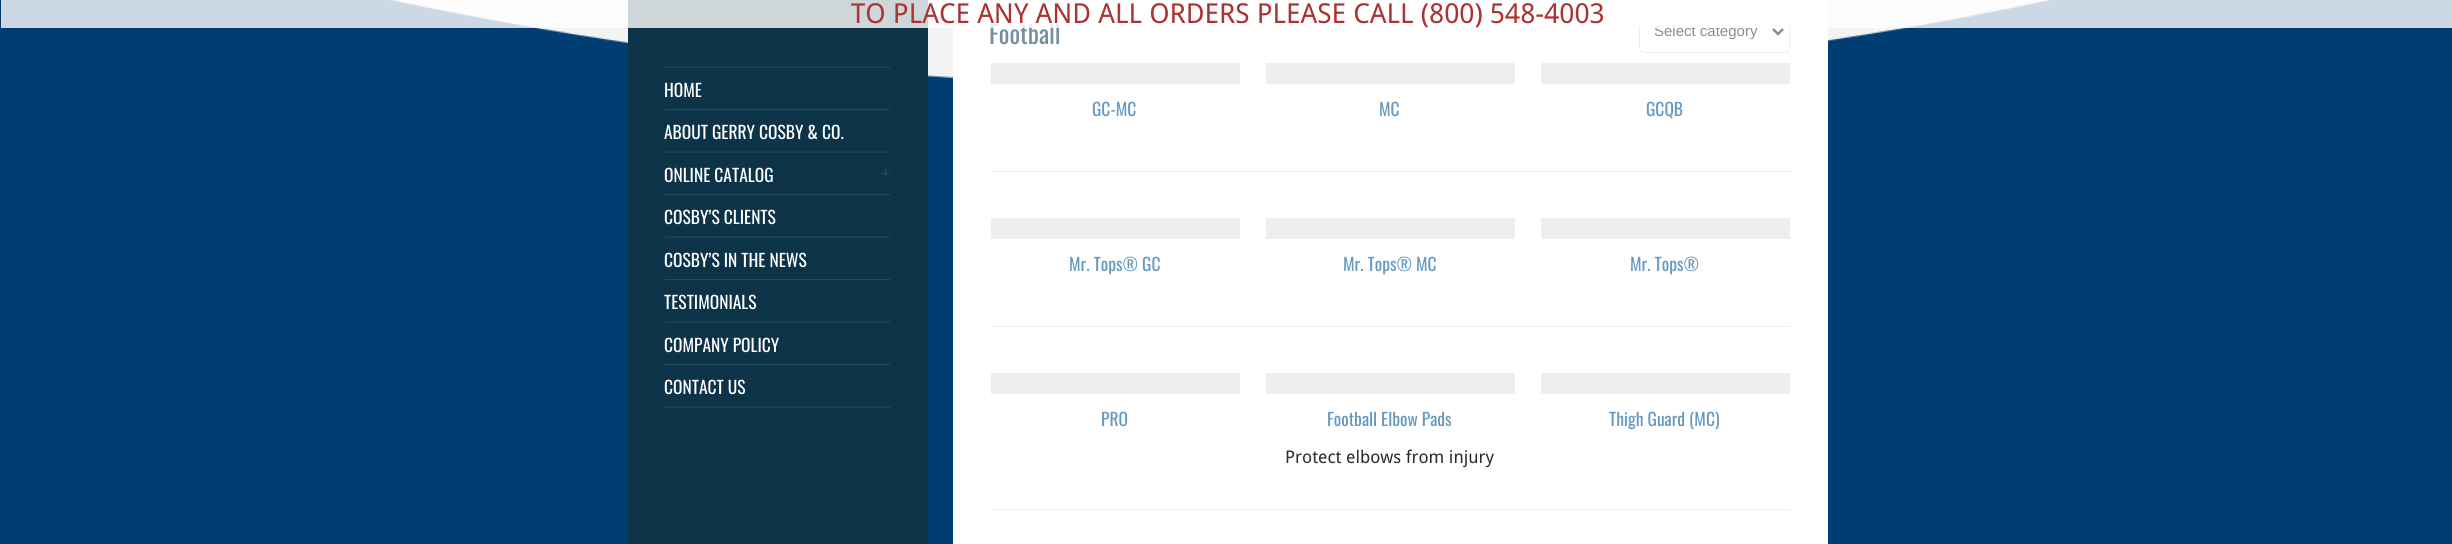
#include <cairo/cairo.h>
#include <math.h>
#include <stddef.h>

typedef struct { double x, y; const char *s; } line_t;
typedef struct { double x, y, w, h; unsigned color; } box_t;
static cairo_t *cr;

static void rgb(unsigned color)
{
	cairo_set_source_rgb(cr, (color >> 16) / 255.0, (color >> 8 & 255) / 255.0, (color & 255) / 255.0);
}

static void rrect(double x, double y, double w, double h, double r)
{
	cairo_new_sub_path(cr);
	cairo_arc(cr, x + w - r, y + h - r, r, 0, M_PI / 2);
	cairo_arc(cr, x + r, y + h - r, r, M_PI / 2, M_PI);
	cairo_arc(cr, x + r, y + r, r, M_PI, 1.5 * M_PI);
	cairo_arc(cr, x + w - r, y + r, r, 1.5 * M_PI, 2 * M_PI);
	cairo_close_path(cr);
}

static void image(const char *path, double x, double y, double w, double h)
{
	cairo_surface_t *image = cairo_image_surface_create_from_png(path);
	cairo_save(cr);
	cairo_set_source_surface(cr, image, x, y);
	cairo_rectangle(cr, x, y, w, h);
	cairo_fill(cr);
	cairo_restore(cr);
	cairo_surface_destroy(image);
}

int main(void) {
	cairo_surface_t *surface = cairo_image_surface_create(CAIRO_FORMAT_RGB24, 2452, 544);
	cr = cairo_create(surface);
	cairo_font_options_t *options = cairo_font_options_create();
	cairo_font_options_set_hint_metrics(options, CAIRO_HINT_METRICS_OFF);
	cairo_font_options_set_hint_style(options, CAIRO_HINT_STYLE_NONE);
	cairo_set_font_options(cr, options);
	cairo_set_miter_limit(cr, 4);
	rgb(0x003d72);
	cairo_paint(cr);
	image("img/1.png", 387, 0, 1667, 78);
	rgb(0x0c3348);
	cairo_rectangle(cr, 628, 0, 300, 544);
	cairo_fill(cr);
	image("img/2.png", 665, 66, 225, 2);
	image("img/3.png", 665, 109, 225, 2);
	image("img/2.png", 665, 151, 225, 2);
	image("img/3.png", 665, 194, 225, 2);
	image("img/4.png", 881, 169, 9, 9);
	image("img/2.png", 665, 236, 225, 2);
	image("img/3.png", 665, 279, 225, 2);
	image("img/2.png", 665, 321, 225, 2);
	image("img/3.png", 665, 364, 225, 2);
	image("img/2.png", 665, 406, 225, 2);
	rgb(0xffffff);
	cairo_rectangle(cr, 953, 0, 875, 544);
	cairo_fill(cr);
	rrect(1639.5, 10.5, 150, 42, 4.5);
	rgb(0xeeeeee);
	cairo_set_line_width(cr, 1);
	cairo_stroke(cr);
	cairo_new_path(cr);
	cairo_move_to(cr, 1773, 29);
	cairo_line_to(cr, 1778, 34);
	cairo_line_to(cr, 1783, 29);
	rgb(0x8c8c8c);
	cairo_set_line_width(cr, 2.5);
	cairo_stroke(cr);
	{
		static const box_t items[] = {
			{991, 63, 249, 21, 0xeeeeee},
			{1266, 63, 249, 21, 0xeeeeee},
			{1541, 63, 249, 21, 0xeeeeee},
			{990, 171, 800, 1, 0xeeeeee},
			{991, 218, 249, 21, 0xeeeeee},
			{1266, 218, 249, 21, 0xeeeeee},
			{1541, 218, 249, 21, 0xeeeeee},
			{990, 326, 800, 1, 0xeeeeee},
			{991, 373, 249, 21, 0xeeeeee},
			{1266, 373, 249, 21, 0xeeeeee},
			{1541, 373, 249, 21, 0xeeeeee},
			{990, 509, 800, 1, 0xeeeeee},
		};
		for (size_t i = 0; i < sizeof items / sizeof *items; i++) {
			rgb(items[i].color);
			cairo_rectangle(cr, items[i].x, items[i].y, items[i].w, items[i].h);
			cairo_fill(cr);
		}
	}
	cairo_select_font_face(cr, "Oswald", CAIRO_FONT_SLANT_NORMAL, CAIRO_FONT_WEIGHT_NORMAL);
	cairo_set_font_size(cr, 17.5);
	rgb(0xffffff);
	{
		static const line_t items[] = {
			{664, 97, "HOME"},
			{664, 139, "ABOUT GERRY COSBY & CO."},
			{664, 182, "ONLINE CATALOG"},
			{664, 224, "COSBY’S CLIENTS"},
			{664, 267, "COSBY’S IN THE NEWS"},
			{664, 309, "TESTIMONIALS"},
			{664, 352, "COMPANY POLICY"},
			{664, 394, "CONTACT US"},
		};
		for (size_t i = 0; i < sizeof items / sizeof *items; i++) {
			cairo_move_to(cr, items[i].x, items[i].y);
			cairo_show_text(cr, items[i].s);
		}
	}
	cairo_set_font_size(cr, 25);
	rgb(0x768e9f);
	cairo_move_to(cr, 989, 44);
	cairo_show_text(cr, "Football");
	cairo_select_font_face(cr, "Liberation Sans", CAIRO_FONT_SLANT_NORMAL, CAIRO_FONT_WEIGHT_NORMAL);
	cairo_set_font_size(cr, 15);
	rgb(0x8c8c8c);
	cairo_move_to(cr, 1654, 36);
	cairo_show_text(cr, "Select category");
	cairo_set_source_rgba(cr, 1, 1, 1, 0.8);
	cairo_rectangle(cr, 1, 0, 2451, 28);
	cairo_fill(cr);
	cairo_select_font_face(cr, "Droid Sans", CAIRO_FONT_SLANT_NORMAL, CAIRO_FONT_WEIGHT_NORMAL);
	cairo_set_font_size(cr, 27.5);
	rgb(0xad3232);
	cairo_move_to(cr, 851, 23);
	cairo_show_text(cr, "TO PLACE ANY AND ALL ORDERS PLEASE CALL (800) 548-4003");
	cairo_select_font_face(cr, "Oswald", CAIRO_FONT_SLANT_NORMAL, CAIRO_FONT_WEIGHT_NORMAL);
	cairo_set_font_size(cr, 17.5);
	rgb(0x6599bf);
	{
		static const line_t items[] = {
			{1092, 116, "GC-MC"},
			{1379, 116, "MC"},
			{1646, 116, "GCQB"},
			{1069, 271, "Mr. Tops® GC"},
			{1343, 271, "Mr. Tops® MC"},
			{1630, 271, "Mr. Tops®"},
			{1101, 426, "PRO"},
			{1327, 426, "Football Elbow Pads"},
		};
		for (size_t i = 0; i < sizeof items / sizeof *items; i++) {
			cairo_move_to(cr, items[i].x, items[i].y);
			cairo_show_text(cr, items[i].s);
		}
	}
	cairo_select_font_face(cr, "Droid Sans", CAIRO_FONT_SLANT_NORMAL, CAIRO_FONT_WEIGHT_NORMAL);
	rgb(0x2b2b2b);
	cairo_move_to(cr, 1285, 463);
	cairo_show_text(cr, "Protect elbows from injury");
	cairo_select_font_face(cr, "Oswald", CAIRO_FONT_SLANT_NORMAL, CAIRO_FONT_WEIGHT_NORMAL);
	rgb(0x6599bf);
	cairo_move_to(cr, 1609, 426);
	cairo_show_text(cr, "Thigh Guard (MC)");
	cairo_surface_write_to_png(surface, "page.png");
	cairo_font_options_destroy(options);
	cairo_destroy(cr);
	cairo_surface_destroy(surface);
	return 0;
}
